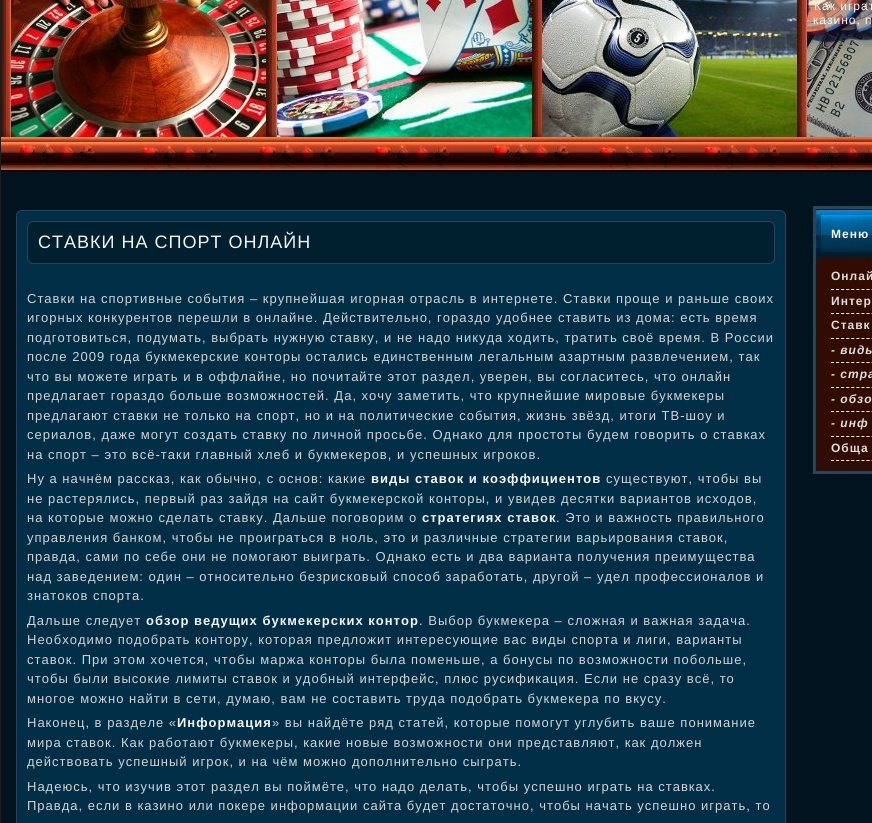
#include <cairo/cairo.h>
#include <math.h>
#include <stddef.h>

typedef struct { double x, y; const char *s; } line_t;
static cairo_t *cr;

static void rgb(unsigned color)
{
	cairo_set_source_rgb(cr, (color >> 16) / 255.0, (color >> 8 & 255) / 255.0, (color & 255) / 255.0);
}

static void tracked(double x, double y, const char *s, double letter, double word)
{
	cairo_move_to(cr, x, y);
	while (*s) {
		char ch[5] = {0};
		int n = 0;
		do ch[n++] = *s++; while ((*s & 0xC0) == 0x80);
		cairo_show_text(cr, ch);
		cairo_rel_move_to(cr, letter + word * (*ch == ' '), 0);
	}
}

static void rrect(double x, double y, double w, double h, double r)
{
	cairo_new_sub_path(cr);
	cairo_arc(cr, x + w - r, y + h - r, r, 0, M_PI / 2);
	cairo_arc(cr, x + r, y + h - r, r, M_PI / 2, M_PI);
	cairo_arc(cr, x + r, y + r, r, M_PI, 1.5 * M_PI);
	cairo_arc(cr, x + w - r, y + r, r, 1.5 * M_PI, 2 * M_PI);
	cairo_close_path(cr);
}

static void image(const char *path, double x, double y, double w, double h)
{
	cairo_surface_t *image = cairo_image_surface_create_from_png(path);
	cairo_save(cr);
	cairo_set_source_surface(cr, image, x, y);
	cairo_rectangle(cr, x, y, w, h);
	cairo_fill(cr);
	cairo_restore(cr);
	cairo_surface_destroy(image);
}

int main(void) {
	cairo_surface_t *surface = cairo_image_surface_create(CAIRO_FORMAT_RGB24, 872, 823);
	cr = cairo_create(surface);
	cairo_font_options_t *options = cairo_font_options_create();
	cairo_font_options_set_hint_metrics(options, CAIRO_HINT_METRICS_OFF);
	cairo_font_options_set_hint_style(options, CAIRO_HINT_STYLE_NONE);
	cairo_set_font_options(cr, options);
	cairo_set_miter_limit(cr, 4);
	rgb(0xffffff);
	cairo_paint(cr);
	cairo_rectangle(cr, 0.5, -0.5, 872, 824);
	rgb(0x1c1c1c);
	cairo_set_line_width(cr, 1);
	cairo_stroke(cr);
	image("img/1.png", 1, 0, 871, 200);
	rgb(0x01131f);
	cairo_rectangle(cr, 1, 200, 871, 623);
	cairo_fill(cr);
	rgb(0x002e46);
	rrect(16.5, 210.5, 769, 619, 5.5);
	cairo_fill_preserve(cr);
	rgb(0x2c425a);
	cairo_stroke(cr);
	rgb(0x002030);
	rrect(27.5, 221.5, 747, 42, 5.5);
	cairo_fill_preserve(cr);
	rgb(0x2c425a);
	cairo_stroke(cr);
	image("img/2.png", 811, 461, 61, 13);
	image("img/3.png", 801, 200, 71, 65);
	image("img/4.png", 811, 265, 61, 196);
	cairo_new_path(cr);
	cairo_move_to(cr, 831, 289.5);
	cairo_line_to(cr, 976, 289.5);
	cairo_move_to(cr, 831, 313.5);
	cairo_line_to(cr, 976, 313.5);
	cairo_move_to(cr, 831, 338.5);
	cairo_line_to(cr, 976, 338.5);
	rgb(0xefefef);
	cairo_set_dash(cr, (double[]){3, 2.07}, 2, 0);
	cairo_stroke(cr);
	cairo_new_path(cr);
	cairo_move_to(cr, 831, 362.5);
	cairo_line_to(cr, 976, 362.5);
	cairo_move_to(cr, 831, 387.5);
	cairo_line_to(cr, 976, 387.5);
	cairo_move_to(cr, 831, 411.5);
	cairo_line_to(cr, 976, 411.5);
	cairo_stroke(cr);
	cairo_new_path(cr);
	cairo_move_to(cr, 831, 436.5);
	cairo_line_to(cr, 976, 436.5);
	cairo_move_to(cr, 831, 460.5);
	cairo_line_to(cr, 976, 460.5);
	cairo_stroke(cr);
	cairo_select_font_face(cr, "Liberation Sans", CAIRO_FONT_SLANT_NORMAL, CAIRO_FONT_WEIGHT_NORMAL);
	cairo_set_font_size(cr, 12);
	rgb(0xf4f4f4);
	tracked(814, 10, "Как играт", 1, 0);
	tracked(813, 24, "казино, п", 1, 0);
	cairo_set_font_size(cr, 18);
	tracked(38, 248, "СТАВКИ НА СПОРТ ОНЛАЙН", 1, 0);
	cairo_set_font_size(cr, 13);
	rgb(0xd3d3d3);
	{
		static const line_t items[] = {
			{27, 303, "Ставки на спортивные события – крупнейшая игорная отрасль в интернете. Ставки проще и раньше своих"},
			{27, 322, "игорных конкурентов перешли в онлайне. Действительно, гораздо удобнее ставить из дома: есть время"},
			{27, 342, "подготовиться, подумать, выбрать нужную ставку, и не надо никуда ходить, тратить своё время. В России"},
			{27, 361, "после 2009 года букмекерские конторы остались единственным легальным азартным развлечением, так"},
			{27, 381, "что вы можете играть и в оффлайне, но почитайте этот раздел, уверен, вы согласитесь, что онлайн"},
			{27, 400, "предлагает гораздо больше возможностей. Да, хочу заметить, что крупнейшие мировые букмекеры"},
			{27, 420, "предлагают ставки не только на спорт, но и на политические события, жизнь звёзд, итоги ТВ-шоу и"},
			{27, 439, "сериалов, даже могут создать ставку по личной просьбе. Однако для простоты будем говорить о ставках"},
			{27, 459, "на спорт – это всё-таки главный хлеб и букмекеров, и успешных игроков."},
			{27, 483, "Ну а начнём рассказ, как обычно, с основ: какие"},
		};
		for (size_t i = 0; i < sizeof items / sizeof *items; i++) {
			tracked(items[i].x, items[i].y, items[i].s, 1, 0);
		}
	}
	cairo_select_font_face(cr, "Liberation Sans", CAIRO_FONT_SLANT_NORMAL, CAIRO_FONT_WEIGHT_BOLD);
	rgb(0xf4f4f4);
	tracked(371, 483, "виды ставок и коэффициентов", 1, 0);
	cairo_select_font_face(cr, "Liberation Sans", CAIRO_FONT_SLANT_NORMAL, CAIRO_FONT_WEIGHT_NORMAL);
	rgb(0xd3d3d3);
	{
		static const line_t items[] = {
			{606, 483, "существуют, чтобы вы"},
			{27, 503, "не растерялись, первый раз зайдя на сайт букмекерской конторы, и увидев десятки вариантов исходов,"},
			{27, 522, "на которые можно сделать ставку. Дальше поговорим о"},
		};
		for (size_t i = 0; i < sizeof items / sizeof *items; i++) {
			tracked(items[i].x, items[i].y, items[i].s, 1, 0);
		}
	}
	cairo_select_font_face(cr, "Liberation Sans", CAIRO_FONT_SLANT_NORMAL, CAIRO_FONT_WEIGHT_BOLD);
	rgb(0xf4f4f4);
	tracked(422, 522, "стратегиях ставок", 1, 0);
	cairo_select_font_face(cr, "Liberation Sans", CAIRO_FONT_SLANT_NORMAL, CAIRO_FONT_WEIGHT_NORMAL);
	rgb(0xd3d3d3);
	{
		static const line_t items[] = {
			{556, 522, ". Это и важность правильного"},
			{27, 542, "управления банком, чтобы не проиграться в ноль, это и различные стратегии варьирования ставок,"},
			{27, 561, "правда, сами по себе они не помогают выиграть. Однако есть и два варианта получения преимущества"},
			{27, 581, "над заведением: один – относительно безрисковый способ заработать, другой – удел профессионалов и"},
			{27, 600, "знатоков спорта."},
			{27, 625, "Дальше следует"},
		};
		for (size_t i = 0; i < sizeof items / sizeof *items; i++) {
			tracked(items[i].x, items[i].y, items[i].s, 1, 0);
		}
	}
	cairo_select_font_face(cr, "Liberation Sans", CAIRO_FONT_SLANT_NORMAL, CAIRO_FONT_WEIGHT_BOLD);
	rgb(0xf4f4f4);
	tracked(146, 625, "обзор ведущих букмекерских контор", 1, 0);
	cairo_select_font_face(cr, "Liberation Sans", CAIRO_FONT_SLANT_NORMAL, CAIRO_FONT_WEIGHT_NORMAL);
	rgb(0xd3d3d3);
	{
		static const line_t items[] = {
			{419, 625, ". Выбор букмекера – сложная и важная задача."},
			{27, 644, "Необходимо подобрать контору, которая предложит интересующие вас виды спорта и лиги, варианты"},
			{27, 664, "ставок. При этом хочется, чтобы маржа конторы была поменьше, а бонусы по возможности побольше,"},
			{27, 683, "чтобы были высокие лимиты ставок и удобный интерфейс, плюс русификация. Если не сразу всё, то"},
			{27, 703, "многое можно найти в сети, думаю, вам не составить труда подобрать букмекера по вкусу."},
			{27, 727, "Наконец, в разделе «"},
		};
		for (size_t i = 0; i < sizeof items / sizeof *items; i++) {
			tracked(items[i].x, items[i].y, items[i].s, 1, 0);
		}
	}
	cairo_select_font_face(cr, "Liberation Sans", CAIRO_FONT_SLANT_NORMAL, CAIRO_FONT_WEIGHT_BOLD);
	rgb(0xf4f4f4);
	tracked(177, 727, "Информация", 1, 0);
	cairo_select_font_face(cr, "Liberation Sans", CAIRO_FONT_SLANT_NORMAL, CAIRO_FONT_WEIGHT_NORMAL);
	rgb(0xd3d3d3);
	{
		static const line_t items[] = {
			{272, 727, "» вы найдёте ряд статей, которые помогут углубить ваше понимание"},
			{27, 747, "мира ставок. Как работают букмекеры, какие новые возможности они представляют, как должен"},
			{27, 766, "действовать успешный игрок, и на чём можно дополнительно сыграть."},
			{27, 791, "Надеюсь, что изучив этот раздел вы поймёте, что надо делать, чтобы успешно играть на ставках."},
			{27, 810, "Правда, если в казино или покере информации сайта будет достаточно, чтобы начать успешно играть, то"},
		};
		for (size_t i = 0; i < sizeof items / sizeof *items; i++) {
			tracked(items[i].x, items[i].y, items[i].s, 1, 0);
		}
	}
	cairo_select_font_face(cr, "Liberation Sans", CAIRO_FONT_SLANT_NORMAL, CAIRO_FONT_WEIGHT_BOLD);
	cairo_set_font_size(cr, 12);
	rgb(0xf4f4f4);
	tracked(831, 238, "Меню", 1, 0);
	rgb(0xdedede);
	{
		static const line_t items[] = {
			{831, 280, "Онлай"},
			{831, 305, "Интер"},
			{831, 329, "Ставк"},
		};
		for (size_t i = 0; i < sizeof items / sizeof *items; i++) {
			tracked(items[i].x, items[i].y, items[i].s, 1, 0);
		}
	}
	cairo_select_font_face(cr, "Liberation Sans", CAIRO_FONT_SLANT_ITALIC, CAIRO_FONT_WEIGHT_BOLD);
	{
		static const line_t items[] = {
			{831, 354, "- виды"},
			{831, 378, "- стра"},
			{831, 403, "- обзо"},
			{831, 427, "- инф"},
		};
		for (size_t i = 0; i < sizeof items / sizeof *items; i++) {
			tracked(items[i].x, items[i].y, items[i].s, 1, 0);
		}
	}
	cairo_select_font_face(cr, "Liberation Sans", CAIRO_FONT_SLANT_NORMAL, CAIRO_FONT_WEIGHT_BOLD);
	tracked(831, 452, "Обща", 1, 0);
	cairo_surface_write_to_png(surface, "page.png");
	cairo_font_options_destroy(options);
	cairo_destroy(cr);
	cairo_surface_destroy(surface);
	return 0;
}
